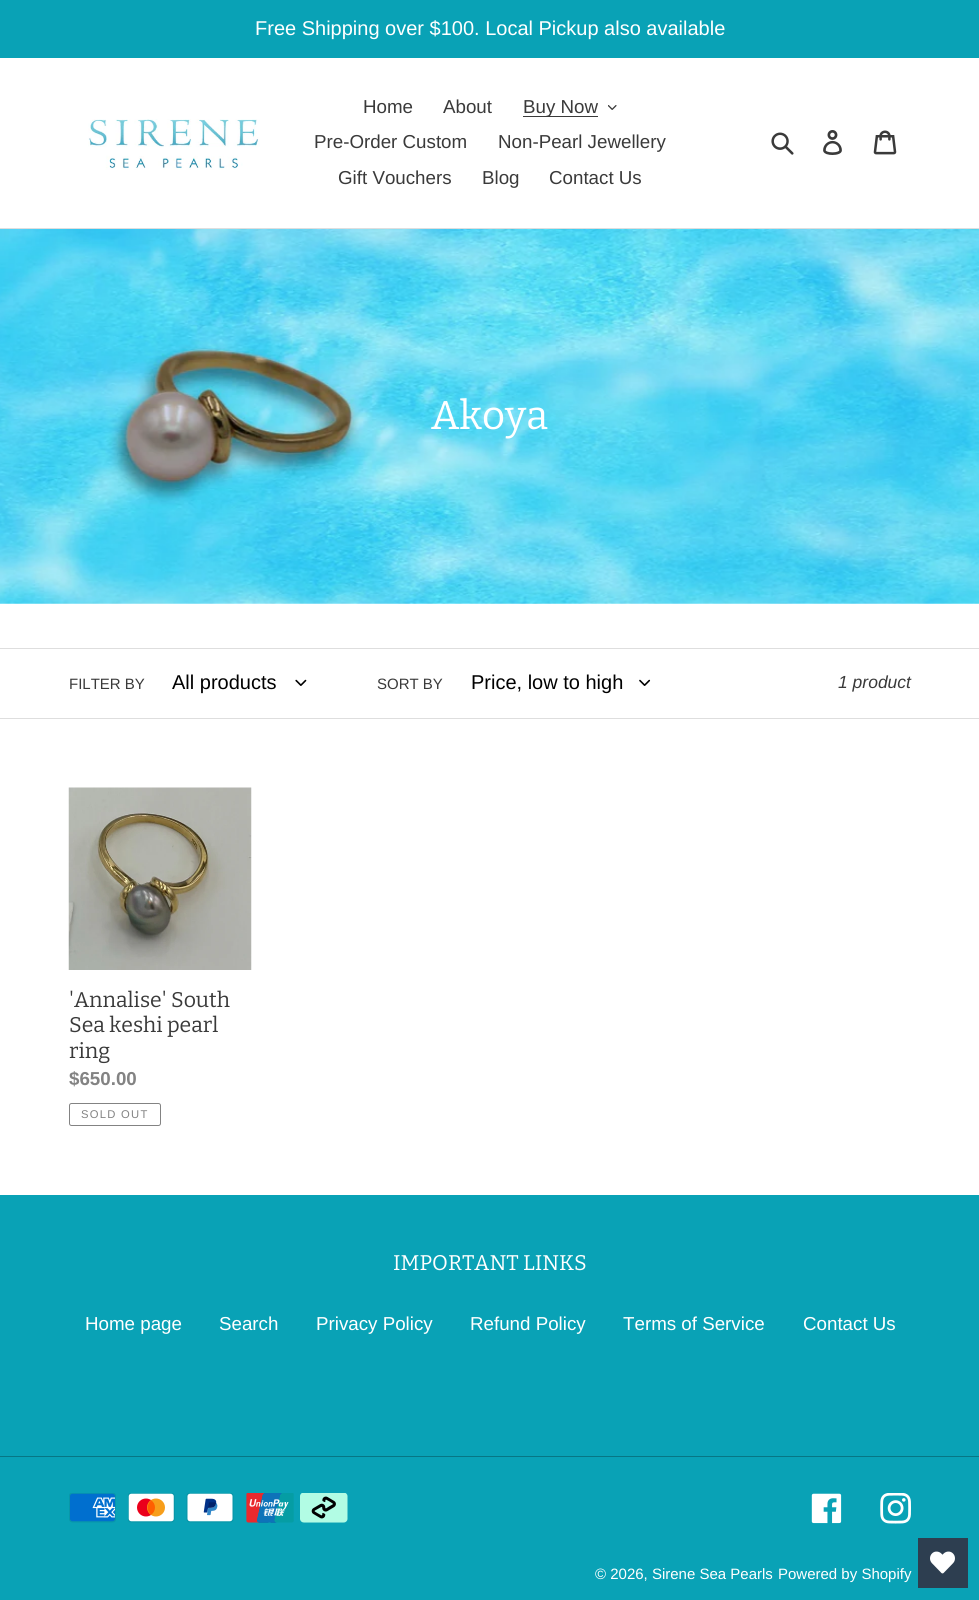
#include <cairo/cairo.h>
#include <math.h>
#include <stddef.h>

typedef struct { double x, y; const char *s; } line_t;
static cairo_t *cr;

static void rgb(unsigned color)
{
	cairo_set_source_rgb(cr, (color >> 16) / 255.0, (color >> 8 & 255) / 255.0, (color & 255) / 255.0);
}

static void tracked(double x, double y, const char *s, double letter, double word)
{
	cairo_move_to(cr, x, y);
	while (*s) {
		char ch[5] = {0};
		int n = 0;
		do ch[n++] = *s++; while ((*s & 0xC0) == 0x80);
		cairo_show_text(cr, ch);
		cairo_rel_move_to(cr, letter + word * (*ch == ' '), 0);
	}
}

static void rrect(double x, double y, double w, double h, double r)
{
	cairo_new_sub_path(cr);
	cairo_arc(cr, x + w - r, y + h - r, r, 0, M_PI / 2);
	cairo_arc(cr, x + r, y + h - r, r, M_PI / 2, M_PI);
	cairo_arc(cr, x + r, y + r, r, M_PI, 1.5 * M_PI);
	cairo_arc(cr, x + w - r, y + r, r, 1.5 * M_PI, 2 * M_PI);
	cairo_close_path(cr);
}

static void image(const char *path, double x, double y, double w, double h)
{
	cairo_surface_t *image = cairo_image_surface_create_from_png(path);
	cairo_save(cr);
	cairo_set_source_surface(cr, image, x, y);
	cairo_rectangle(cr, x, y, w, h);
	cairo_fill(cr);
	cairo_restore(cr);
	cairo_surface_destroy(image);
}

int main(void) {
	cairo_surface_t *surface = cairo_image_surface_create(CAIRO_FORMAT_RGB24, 979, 1600);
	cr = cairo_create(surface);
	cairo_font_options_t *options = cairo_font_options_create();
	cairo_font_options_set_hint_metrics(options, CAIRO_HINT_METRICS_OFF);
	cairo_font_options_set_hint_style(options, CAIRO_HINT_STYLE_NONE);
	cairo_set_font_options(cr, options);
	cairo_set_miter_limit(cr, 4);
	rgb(0xffffff);
	cairo_paint(cr);
	rgb(0x09a2b6);
	cairo_rectangle(cr, 0, 0, 979, 58);
	cairo_fill(cr);
	rgb(0xdedede);
	cairo_rectangle(cr, 0, 228, 979, 1);
	cairo_fill(cr);
	image("img/1.png", 88, 119, 172, 51);
	rgb(0x3a3a3a);
	cairo_rectangle(cr, 523, 116, 75, 1);
	cairo_fill(cr);
	image("img/2.png", 608, 105, 9, 5);
	image("img/3.png", 771, 132, 23, 23);
	image("img/4.png", 823, 130, 19, 25);
	image("img/5.png", 873, 130, 24, 25);
	image("img/6.png", 0, 229, 979, 375);
	rgb(0xdedede);
	cairo_rectangle(cr, 0, 648, 979, 1);
	cairo_fill(cr);
	cairo_rectangle(cr, 0, 718, 979, 1);
	cairo_fill(cr);
	image("img/7.png", 295, 679, 12, 7);
	image("img/8.png", 639, 679, 12, 7);
	image("img/9.png", 68, 787, 184, 183);
	rrect(69.5, 1103.5, 91, 22, 2);
	rgb(0x838383);
	cairo_set_line_width(cr, 1);
	cairo_stroke(cr);
	rgb(0x09a2b6);
	cairo_rectangle(cr, 0, 1195, 979, 405);
	cairo_fill(cr);
	rgb(0x077785);
	cairo_rectangle(cr, 0, 1456, 979, 1);
	cairo_fill(cr);
	image("img/10.png", 69, 1493, 47, 30);
	image("img/11.png", 128, 1493, 47, 30);
	image("img/12.png", 186, 1493, 48, 30);
	image("img/13.png", 246, 1493, 48, 30);
	image("img/14.png", 300, 1493, 48, 30);
	image("img/15.png", 811, 1493, 31, 31);
	image("img/16.png", 880, 1493, 31, 31);
	rgb(0x2d3e50);
	cairo_rectangle(cr, 918, 1538, 50, 50);
	cairo_fill(cr);
	image("img/17.png", 930, 1551, 25, 23);
	cairo_select_font_face(cr, "Liberation Sans", CAIRO_FONT_SLANT_NORMAL, CAIRO_FONT_WEIGHT_NORMAL);
	cairo_set_font_size(cr, 20);
	rgb(0xffffff);
	cairo_move_to(cr, 255, 35);
	cairo_show_text(cr, "Free Shipping over $100. Local Pickup also available");
	cairo_set_font_size(cr, 18.75);
	rgb(0x3a3a3a);
	{
		static const line_t items[] = {
			{363, 113, "Home"},
			{443, 113, "About"},
			{523, 113, "Buy Now"},
			{314, 148, "Pre-Order Custom"},
			{498, 148, "Non-Pearl Jewellery"},
			{338, 184, "Gift Vouchers"},
			{482, 184, "Blog"},
			{549, 184, "Contact Us"},
		};
		for (size_t i = 0; i < sizeof items / sizeof *items; i++) {
			cairo_move_to(cr, items[i].x, items[i].y);
			cairo_show_text(cr, items[i].s);
		}
	}
	cairo_select_font_face(cr, "Bitter", CAIRO_FONT_SLANT_NORMAL, CAIRO_FONT_WEIGHT_NORMAL);
	cairo_set_font_size(cr, 40);
	rgb(0xffffff);
	cairo_move_to(cr, 431, 429);
	cairo_show_text(cr, "Akoya");
	cairo_select_font_face(cr, "Liberation Sans", CAIRO_FONT_SLANT_NORMAL, CAIRO_FONT_WEIGHT_NORMAL);
	cairo_set_font_size(cr, 15);
	rgb(0x3a3a3a);
	cairo_move_to(cr, 69, 689);
	cairo_show_text(cr, "FILTER BY");
	cairo_set_font_size(cr, 20);
	rgb(0x000000);
	cairo_move_to(cr, 172, 689);
	cairo_show_text(cr, "All products");
	cairo_set_font_size(cr, 15);
	rgb(0x3a3a3a);
	cairo_move_to(cr, 377, 689);
	cairo_show_text(cr, "SORT BY");
	cairo_set_font_size(cr, 20);
	rgb(0x000000);
	cairo_move_to(cr, 471, 689);
	cairo_show_text(cr, "Price, low to high");
	cairo_select_font_face(cr, "Liberation Sans", CAIRO_FONT_SLANT_ITALIC, CAIRO_FONT_WEIGHT_NORMAL);
	cairo_set_font_size(cr, 17.5);
	rgb(0x3a3a3a);
	cairo_move_to(cr, 838, 688);
	cairo_show_text(cr, "1 product");
	cairo_select_font_face(cr, "Bitter", CAIRO_FONT_SLANT_NORMAL, CAIRO_FONT_WEIGHT_NORMAL);
	cairo_set_font_size(cr, 21.25);
	{
		static const line_t items[] = {
			{69, 1007, "'Annalise' South"},
			{69, 1032, "Sea keshi pearl"},
			{69, 1058, "ring"},
		};
		for (size_t i = 0; i < sizeof items / sizeof *items; i++) {
			cairo_move_to(cr, items[i].x, items[i].y);
			cairo_show_text(cr, items[i].s);
		}
	}
	cairo_select_font_face(cr, "Liberation Sans", CAIRO_FONT_SLANT_NORMAL, CAIRO_FONT_WEIGHT_BOLD);
	cairo_set_font_size(cr, 18.75);
	rgb(0x838383);
	cairo_move_to(cr, 69, 1085);
	cairo_show_text(cr, "$650.00");
	cairo_select_font_face(cr, "Liberation Sans", CAIRO_FONT_SLANT_NORMAL, CAIRO_FONT_WEIGHT_NORMAL);
	cairo_set_font_size(cr, 11.25);
	tracked(81, 1118, "SOLD OUT", 1.25, 0);
	cairo_select_font_face(cr, "Bitter", CAIRO_FONT_SLANT_NORMAL, CAIRO_FONT_WEIGHT_NORMAL);
	cairo_set_font_size(cr, 21.25);
	rgb(0xffffff);
	cairo_move_to(cr, 393, 1270);
	cairo_show_text(cr, "IMPORTANT LINKS");
	cairo_select_font_face(cr, "Liberation Sans", CAIRO_FONT_SLANT_NORMAL, CAIRO_FONT_WEIGHT_NORMAL);
	cairo_set_font_size(cr, 18.75);
	{
		static const line_t items[] = {
			{85, 1330, "Home page"},
			{219, 1330, "Search"},
			{316, 1330, "Privacy Policy"},
			{470, 1330, "Refund Policy"},
			{623, 1330, "Terms of Service"},
			{803, 1330, "Contact Us"},
		};
		for (size_t i = 0; i < sizeof items / sizeof *items; i++) {
			cairo_move_to(cr, items[i].x, items[i].y);
			cairo_show_text(cr, items[i].s);
		}
	}
	cairo_set_font_size(cr, 15);
	cairo_move_to(cr, 595, 1579);
	cairo_show_text(cr, "© 2026, Sirene Sea Pearls");
	cairo_move_to(cr, 778, 1579);
	cairo_show_text(cr, "Powered by Shopify");
	cairo_surface_write_to_png(surface, "page.png");
	cairo_font_options_destroy(options);
	cairo_destroy(cr);
	cairo_surface_destroy(surface);
	return 0;
}
